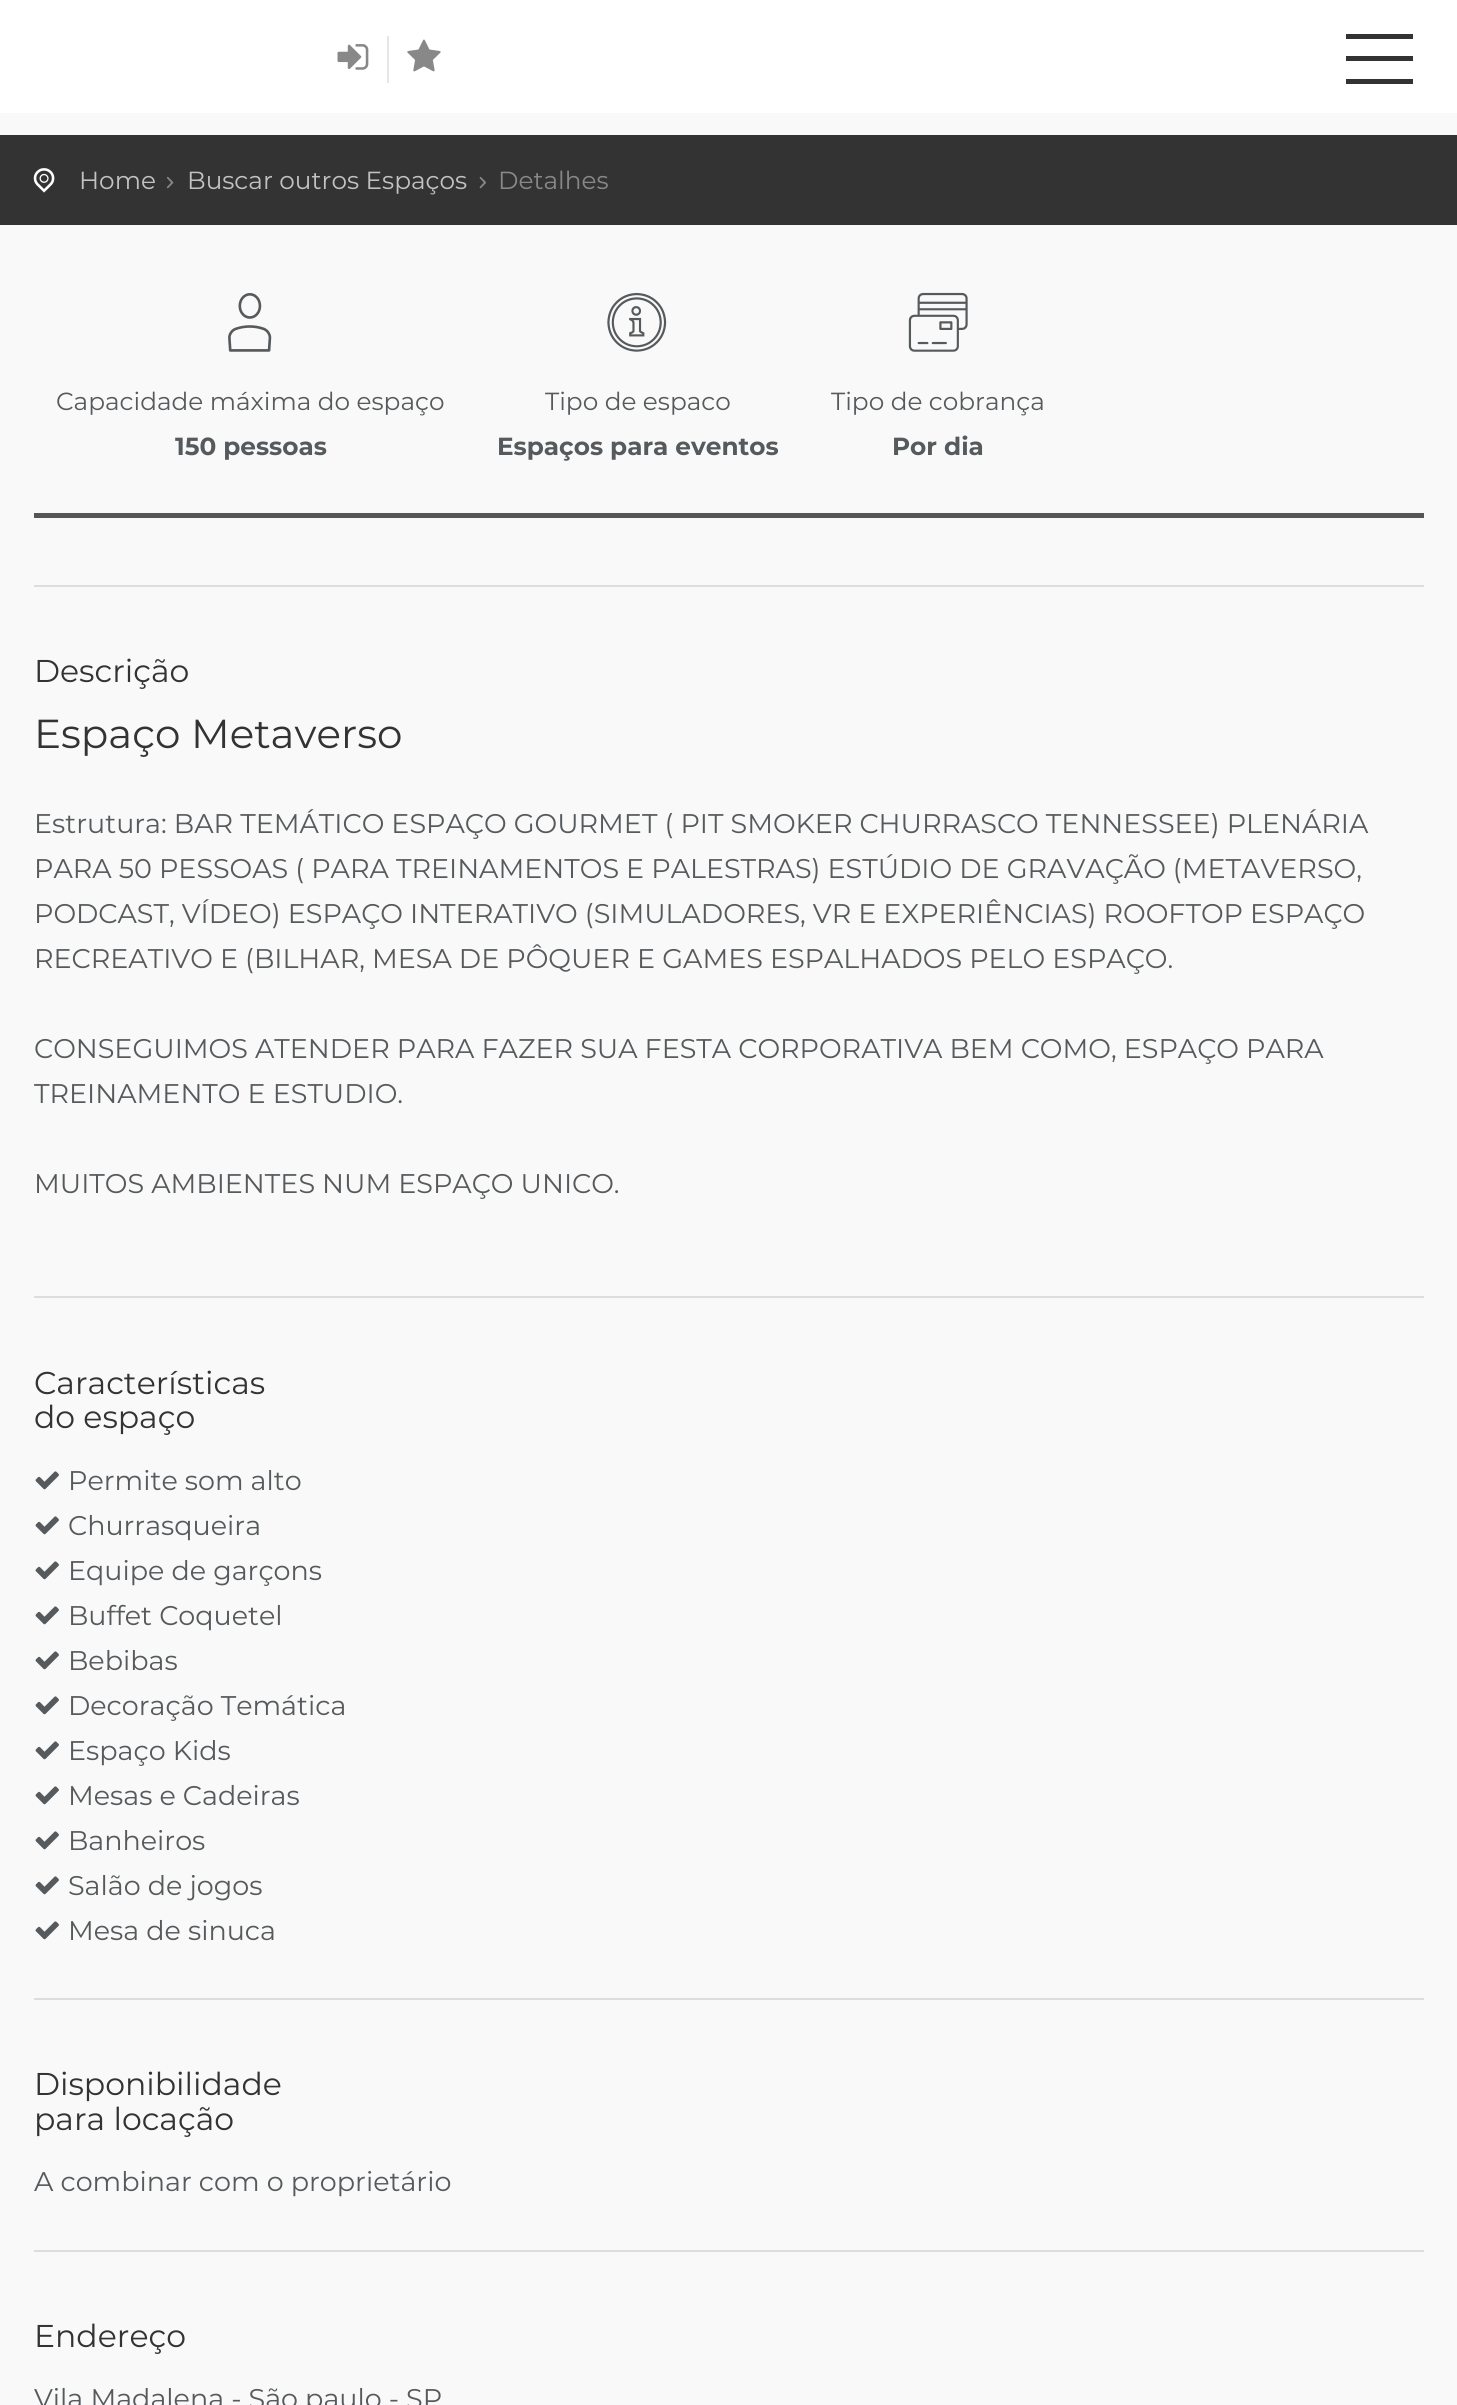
#include <cairo/cairo.h>
#include <math.h>
#include <stddef.h>

typedef struct { double x, y; const char *s; } line_t;
typedef struct { double x, y, w, h; unsigned color; } box_t;
static cairo_t *cr;

static void rgb(unsigned color)
{
	cairo_set_source_rgb(cr, (color >> 16) / 255.0, (color >> 8 & 255) / 255.0, (color & 255) / 255.0);
}

static void image(const char *path, double x, double y, double w, double h)
{
	cairo_surface_t *image = cairo_image_surface_create_from_png(path);
	cairo_save(cr);
	cairo_set_source_surface(cr, image, x, y);
	cairo_rectangle(cr, x, y, w, h);
	cairo_fill(cr);
	cairo_restore(cr);
	cairo_surface_destroy(image);
}

int main(void) {
	cairo_surface_t *surface = cairo_image_surface_create(CAIRO_FORMAT_RGB24, 1457, 2405);
	cr = cairo_create(surface);
	cairo_font_options_t *options = cairo_font_options_create();
	cairo_font_options_set_hint_metrics(options, CAIRO_HINT_METRICS_OFF);
	cairo_font_options_set_hint_style(options, CAIRO_HINT_STYLE_NONE);
	cairo_set_font_options(cr, options);
	cairo_set_miter_limit(cr, 4);
	rgb(0xf9f9f9);
	cairo_paint(cr);
	rgb(0xffffff);
	cairo_rectangle(cr, 0, 0, 1457, 113);
	cairo_fill(cr);
	image("img/1.png", 337, 44, 32, 26);
	rgb(0xe6e6e6);
	cairo_rectangle(cr, 387, 36, 2, 47);
	cairo_fill(cr);
	image("img/2.png", 407, 39, 34, 33);
	{
		static const box_t items[] = {
			{1346, 56, 67, 5, 0x333333},
			{1346, 34, 67, 5, 0x333333},
			{1346, 79, 67, 5, 0x333333},
			{0, 135, 1457, 90, 0x333333},
		};
		for (size_t i = 0; i < sizeof items / sizeof *items; i++) {
			rgb(items[i].color);
			cairo_rectangle(cr, items[i].x, items[i].y, items[i].w, items[i].h);
			cairo_fill(cr);
		}
	}
	image("img/3.png", 33, 168, 22, 25);
	image("img/4.png", 166, 176, 8, 13);
	image("img/5.png", 479, 176, 7, 13);
	rgb(0x555555);
	cairo_rectangle(cr, 34, 513, 1390, 5);
	cairo_fill(cr);
	image("img/6.png", 228, 293, 44, 59);
	image("img/7.png", 607, 292, 60, 60);
	image("img/8.png", 908, 292, 60, 60);
	rgb(0xdddddd);
	cairo_rectangle(cr, 34, 585, 1390, 2);
	cairo_fill(cr);
	cairo_rectangle(cr, 34, 1296, 1390, 2);
	cairo_fill(cr);
	image("img/9.png", 35, 1471, 24, 19);
	image("img/9.png", 35, 1516, 24, 19);
	image("img/9.png", 35, 1561, 24, 19);
	image("img/9.png", 35, 1606, 24, 19);
	image("img/9.png", 35, 1651, 24, 19);
	image("img/9.png", 35, 1696, 24, 19);
	image("img/9.png", 35, 1741, 24, 19);
	image("img/9.png", 35, 1786, 24, 19);
	image("img/9.png", 35, 1831, 24, 19);
	image("img/9.png", 35, 1876, 24, 19);
	image("img/9.png", 35, 1921, 24, 19);
	cairo_rectangle(cr, 34, 1998, 1390, 2);
	cairo_fill(cr);
	cairo_rectangle(cr, 34, 2250, 1390, 2);
	cairo_fill(cr);
	cairo_select_font_face(cr, "Montserrat", CAIRO_FONT_SLANT_NORMAL, CAIRO_FONT_WEIGHT_NORMAL);
	cairo_set_font_size(cr, 24.75);
	rgb(0xc2c2c2);
	cairo_move_to(cr, 79, 189);
	cairo_show_text(cr, "Home");
	cairo_move_to(cr, 187, 189);
	cairo_show_text(cr, "Buscar outros Espaços");
	rgb(0x888888);
	cairo_move_to(cr, 498, 189);
	cairo_show_text(cr, "Detalhes");
	rgb(0x565a5c);
	cairo_move_to(cr, 56, 410);
	cairo_show_text(cr, "Capacidade máxima do espaço");
	cairo_select_font_face(cr, "Montserrat", CAIRO_FONT_SLANT_NORMAL, CAIRO_FONT_WEIGHT_BOLD);
	cairo_move_to(cr, 175, 455);
	cairo_show_text(cr, "150 pessoas");
	cairo_select_font_face(cr, "Montserrat", CAIRO_FONT_SLANT_NORMAL, CAIRO_FONT_WEIGHT_NORMAL);
	cairo_move_to(cr, 545, 410);
	cairo_show_text(cr, "Tipo de espaco");
	cairo_select_font_face(cr, "Montserrat", CAIRO_FONT_SLANT_NORMAL, CAIRO_FONT_WEIGHT_BOLD);
	cairo_move_to(cr, 497, 455);
	cairo_show_text(cr, "Espaços para eventos");
	cairo_select_font_face(cr, "Montserrat", CAIRO_FONT_SLANT_NORMAL, CAIRO_FONT_WEIGHT_NORMAL);
	cairo_move_to(cr, 831, 410);
	cairo_show_text(cr, "Tipo de cobrança");
	cairo_select_font_face(cr, "Montserrat", CAIRO_FONT_SLANT_NORMAL, CAIRO_FONT_WEIGHT_BOLD);
	cairo_move_to(cr, 892, 455);
	cairo_show_text(cr, "Por dia");
	cairo_select_font_face(cr, "Montserrat", CAIRO_FONT_SLANT_NORMAL, CAIRO_FONT_WEIGHT_NORMAL);
	cairo_set_font_size(cr, 31.5);
	rgb(0x333333);
	cairo_move_to(cr, 34, 682);
	cairo_show_text(cr, "Descrição");
	cairo_set_font_size(cr, 40.5);
	cairo_move_to(cr, 34, 748);
	cairo_show_text(cr, "Espaço Metaverso");
	cairo_set_font_size(cr, 27);
	rgb(0x565a5c);
	{
		static const line_t items[] = {
			{34, 833, "Estrutura: BAR TEMÁTICO ESPAÇO GOURMET ( PIT SMOKER CHURRASCO TENNESSEE) PLENÁRIA"},
			{34, 878, "PARA 50 PESSOAS ( PARA TREINAMENTOS E PALESTRAS) ESTÚDIO DE GRAVAÇÃO (METAVERSO,"},
			{34, 923, "PODCAST, VÍDEO) ESPAÇO INTERATIVO (SIMULADORES, VR E EXPERIÊNCIAS) ROOFTOP ESPAÇO"},
			{34, 968, "RECREATIVO E (BILHAR, MESA DE PÔQUER E GAMES ESPALHADOS PELO ESPAÇO."},
			{34, 1058, "CONSEGUIMOS ATENDER PARA FAZER SUA FESTA CORPORATIVA BEM COMO, ESPAÇO PARA"},
			{34, 1103, "TREINAMENTO E ESTUDIO."},
			{34, 1193, "MUITOS AMBIENTES NUM ESPAÇO UNICO."},
		};
		for (size_t i = 0; i < sizeof items / sizeof *items; i++) {
			cairo_move_to(cr, items[i].x, items[i].y);
			cairo_show_text(cr, items[i].s);
		}
	}
	cairo_set_font_size(cr, 31.5);
	rgb(0x333333);
	cairo_move_to(cr, 34, 1394);
	cairo_show_text(cr, "Características");
	cairo_move_to(cr, 34, 1428);
	cairo_show_text(cr, "do espaço");
	cairo_set_font_size(cr, 27);
	rgb(0x565a5c);
	{
		static const line_t items[] = {
			{68, 1490, "Permite som alto"},
			{68, 1535, "Churrasqueira"},
			{68, 1580, "Equipe de garçons"},
			{68, 1625, "Buffet Coquetel"},
			{68, 1670, "Bebibas"},
			{68, 1715, "Decoração Temática"},
			{68, 1760, "Espaço Kids"},
			{68, 1805, "Mesas e Cadeiras"},
			{68, 1850, "Banheiros"},
			{68, 1895, "Salão de jogos"},
			{68, 1940, "Mesa de sinuca"},
		};
		for (size_t i = 0; i < sizeof items / sizeof *items; i++) {
			cairo_move_to(cr, items[i].x, items[i].y);
			cairo_show_text(cr, items[i].s);
		}
	}
	cairo_set_font_size(cr, 31.5);
	rgb(0x333333);
	cairo_move_to(cr, 34, 2095);
	cairo_show_text(cr, "Disponibilidade");
	cairo_move_to(cr, 34, 2130);
	cairo_show_text(cr, "para locação");
	cairo_set_font_size(cr, 27);
	rgb(0x565a5c);
	cairo_move_to(cr, 34, 2191);
	cairo_show_text(cr, "A combinar com o proprietário");
	cairo_set_font_size(cr, 31.5);
	rgb(0x333333);
	cairo_move_to(cr, 34, 2347);
	cairo_show_text(cr, "Endereço");
	cairo_set_font_size(cr, 27);
	rgb(0x565a5c);
	cairo_move_to(cr, 34, 2408);
	cairo_show_text(cr, "Vila Madalena - São paulo - SP");
	cairo_surface_write_to_png(surface, "page.png");
	cairo_font_options_destroy(options);
	cairo_destroy(cr);
	cairo_surface_destroy(surface);
	return 0;
}
